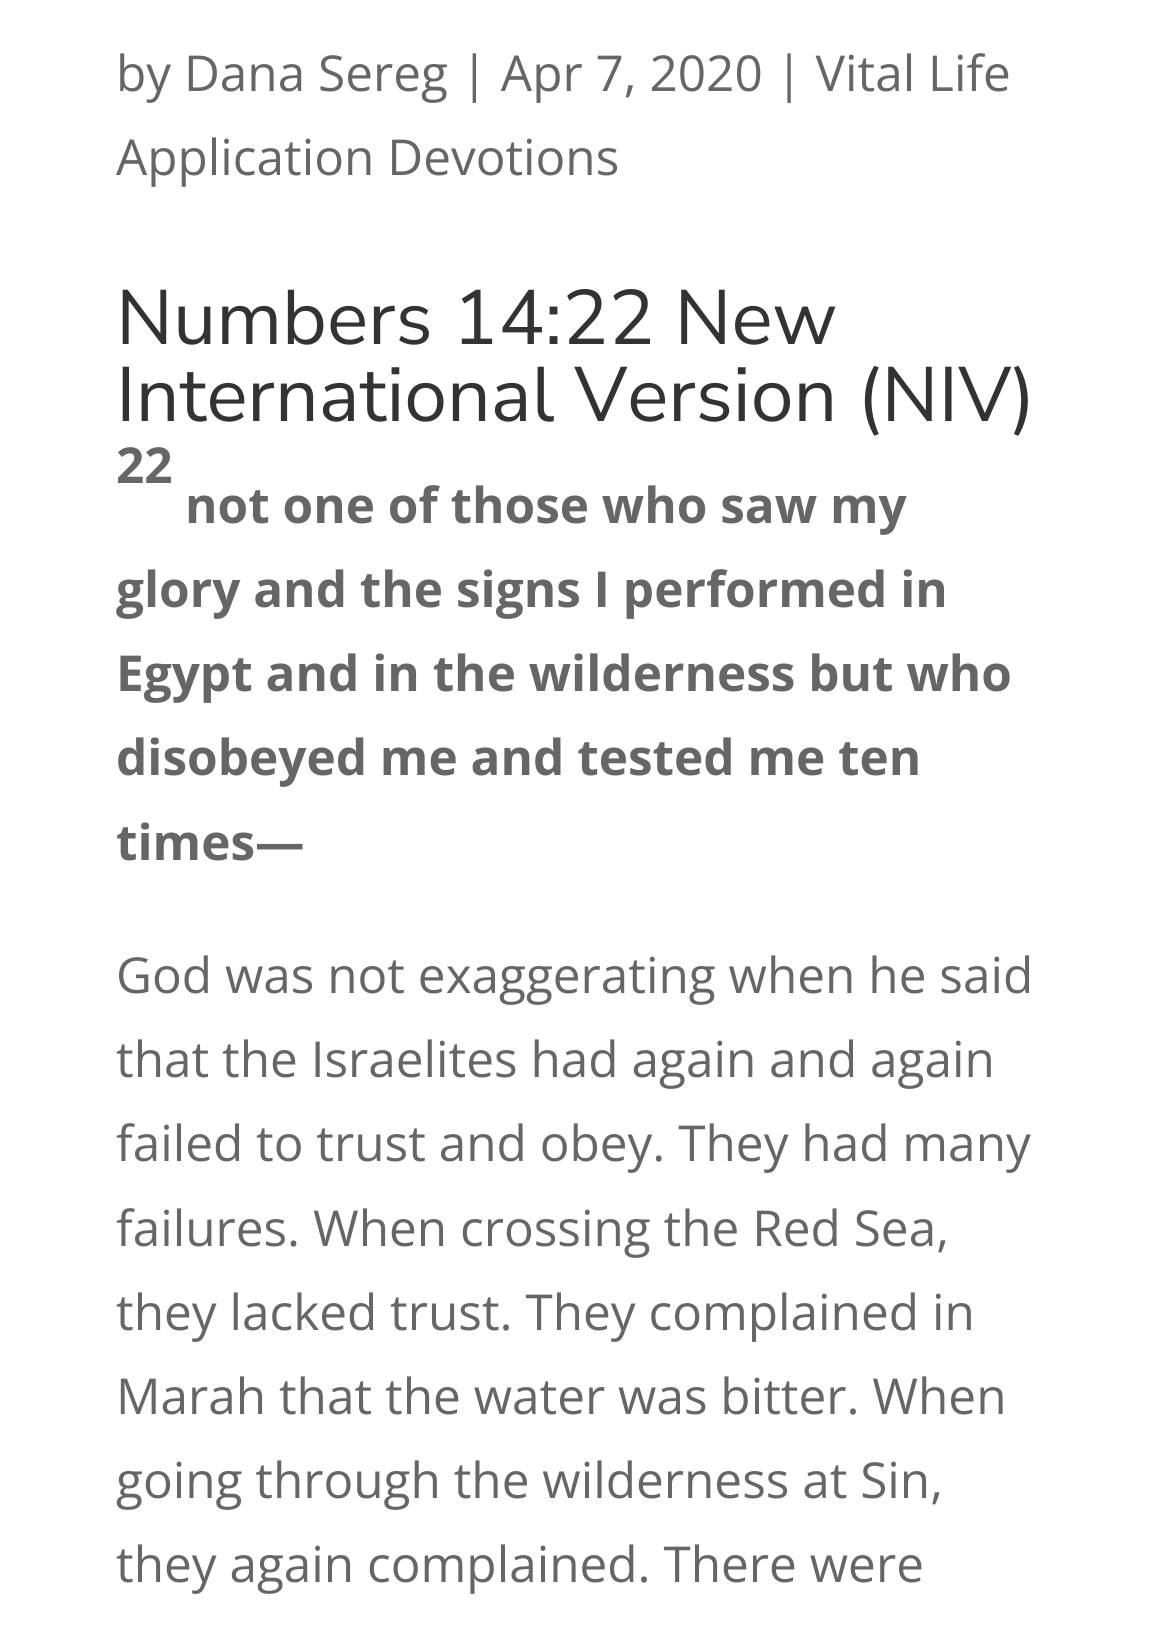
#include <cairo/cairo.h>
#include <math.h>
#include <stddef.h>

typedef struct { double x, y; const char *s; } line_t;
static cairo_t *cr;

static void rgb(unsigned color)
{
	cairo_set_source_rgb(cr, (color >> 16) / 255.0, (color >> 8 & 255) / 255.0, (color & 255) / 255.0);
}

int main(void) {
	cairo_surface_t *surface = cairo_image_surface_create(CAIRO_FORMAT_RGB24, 1154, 1626);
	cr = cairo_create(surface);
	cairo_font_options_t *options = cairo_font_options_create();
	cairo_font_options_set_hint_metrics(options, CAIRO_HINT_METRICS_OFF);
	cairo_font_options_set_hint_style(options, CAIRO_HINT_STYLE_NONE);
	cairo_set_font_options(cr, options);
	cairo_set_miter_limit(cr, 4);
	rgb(0xffffff);
	cairo_paint(cr);
	cairo_select_font_face(cr, "Open Sans", CAIRO_FONT_SLANT_NORMAL, CAIRO_FONT_WEIGHT_NORMAL);
	cairo_set_font_size(cr, 49.5);
	rgb(0x666666);
	cairo_move_to(cr, 116, 91);
	cairo_show_text(cr, "by Dana Sereg | Apr 7, 2020 | Vital Life");
	cairo_move_to(cr, 116, 175);
	cairo_show_text(cr, "Application Devotions");
	cairo_select_font_face(cr, "Nunito Sans ExtraLight", CAIRO_FONT_SLANT_NORMAL, CAIRO_FONT_WEIGHT_NORMAL);
	cairo_set_font_size(cr, 77);
	rgb(0x333333);
	cairo_move_to(cr, 116, 344);
	cairo_show_text(cr, "Numbers 14:22 New");
	cairo_move_to(cr, 116, 421);
	cairo_show_text(cr, "International Version (NIV)");
	cairo_select_font_face(cr, "Open Sans", CAIRO_FONT_SLANT_NORMAL, CAIRO_FONT_WEIGHT_BOLD);
	cairo_set_font_size(cr, 49.5);
	rgb(0x666666);
	{
		static const line_t items[] = {
			{116, 483, "22"},
			{185, 523, "not one of those who saw my"},
			{116, 607, "glory and the signs I performed in"},
			{116, 691, "Egypt and in the wilderness but who"},
			{116, 775, "disobeyed me and tested me ten"},
			{116, 860, "times—"},
		};
		for (size_t i = 0; i < sizeof items / sizeof *items; i++) {
			cairo_move_to(cr, items[i].x, items[i].y);
			cairo_show_text(cr, items[i].s);
		}
	}
	cairo_select_font_face(cr, "Open Sans", CAIRO_FONT_SLANT_NORMAL, CAIRO_FONT_WEIGHT_NORMAL);
	{
		static const line_t items[] = {
			{116, 993, "God was not exaggerating when he said"},
			{116, 1077, "that the Israelites had again and again"},
			{116, 1161, "failed to trust and obey. They had many"},
			{116, 1246, "failures. When crossing the Red Sea,"},
			{116, 1330, "they lacked trust. They complained in"},
			{116, 1414, "Marah that the water was bitter. When"},
			{116, 1498, "going through the wilderness at Sin,"},
			{116, 1582, "they again complained. There were"},
		};
		for (size_t i = 0; i < sizeof items / sizeof *items; i++) {
			cairo_move_to(cr, items[i].x, items[i].y);
			cairo_show_text(cr, items[i].s);
		}
	}
	cairo_surface_write_to_png(surface, "page.png");
	cairo_font_options_destroy(options);
	cairo_destroy(cr);
	cairo_surface_destroy(surface);
	return 0;
}
